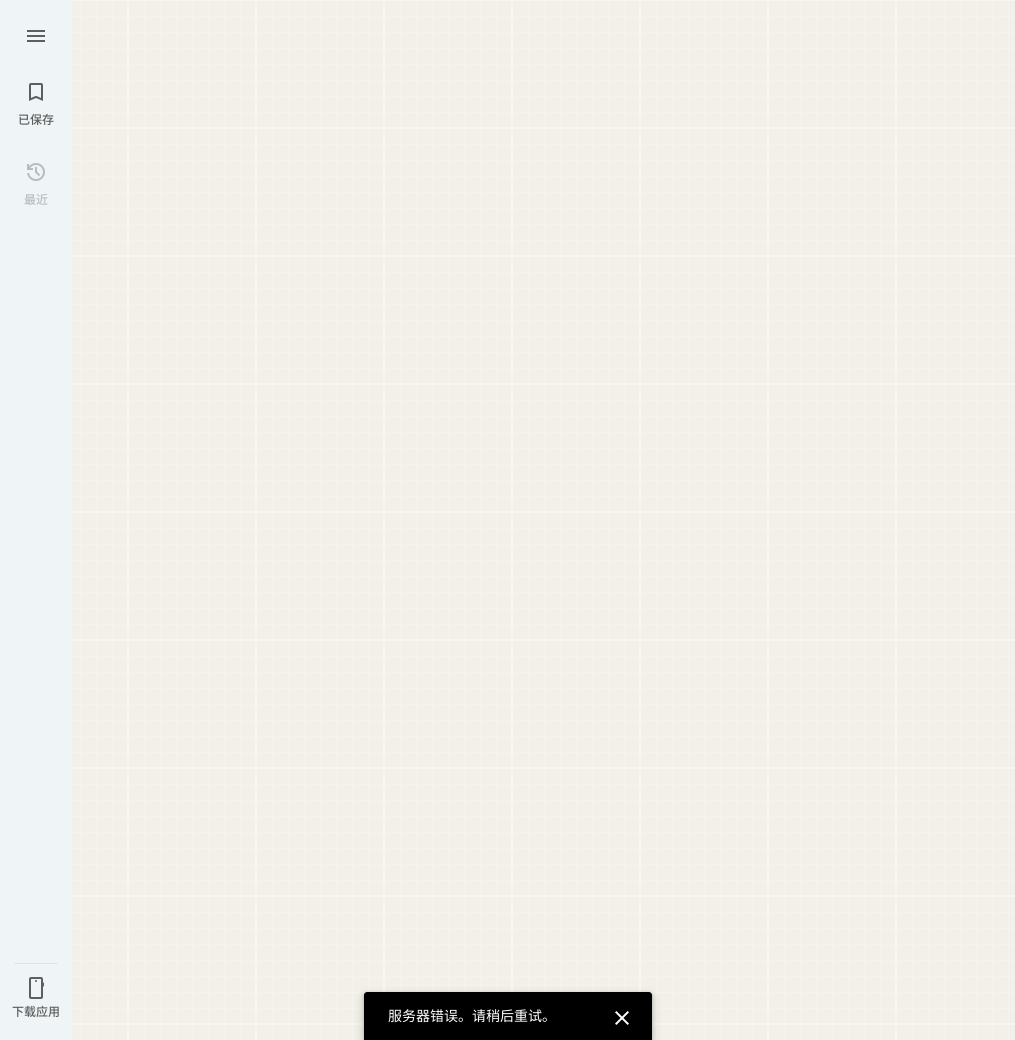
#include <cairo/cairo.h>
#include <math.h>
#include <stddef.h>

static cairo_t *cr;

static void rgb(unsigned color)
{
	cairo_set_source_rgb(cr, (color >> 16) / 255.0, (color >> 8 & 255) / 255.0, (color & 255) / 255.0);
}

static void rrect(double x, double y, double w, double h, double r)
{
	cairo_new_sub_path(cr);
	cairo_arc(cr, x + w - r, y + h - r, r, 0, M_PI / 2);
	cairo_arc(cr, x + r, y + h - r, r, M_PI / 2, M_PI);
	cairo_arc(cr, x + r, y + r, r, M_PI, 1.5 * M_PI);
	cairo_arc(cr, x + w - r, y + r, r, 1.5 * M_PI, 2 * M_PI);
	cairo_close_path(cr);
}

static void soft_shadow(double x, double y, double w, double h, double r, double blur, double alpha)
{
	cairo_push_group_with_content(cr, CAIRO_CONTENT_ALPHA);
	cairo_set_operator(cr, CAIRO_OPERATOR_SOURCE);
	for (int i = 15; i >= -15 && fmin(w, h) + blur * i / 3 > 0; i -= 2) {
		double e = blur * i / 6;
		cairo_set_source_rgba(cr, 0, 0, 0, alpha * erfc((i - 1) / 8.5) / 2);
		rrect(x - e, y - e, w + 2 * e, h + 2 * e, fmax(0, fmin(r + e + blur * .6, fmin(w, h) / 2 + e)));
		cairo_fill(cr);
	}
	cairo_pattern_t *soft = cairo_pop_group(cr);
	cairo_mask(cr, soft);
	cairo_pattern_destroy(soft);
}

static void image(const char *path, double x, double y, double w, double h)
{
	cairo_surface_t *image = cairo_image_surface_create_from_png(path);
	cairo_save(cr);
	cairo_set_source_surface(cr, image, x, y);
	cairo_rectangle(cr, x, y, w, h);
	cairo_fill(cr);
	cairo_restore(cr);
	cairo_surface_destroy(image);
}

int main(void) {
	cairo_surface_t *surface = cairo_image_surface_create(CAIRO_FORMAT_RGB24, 1015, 1040);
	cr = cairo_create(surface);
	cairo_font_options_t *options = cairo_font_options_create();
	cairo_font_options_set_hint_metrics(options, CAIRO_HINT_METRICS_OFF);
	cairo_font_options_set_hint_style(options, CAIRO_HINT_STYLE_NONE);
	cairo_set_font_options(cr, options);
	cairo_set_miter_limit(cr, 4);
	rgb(0xf2f0e8);
	cairo_paint(cr);
	rgb(0xeff5f6);
	cairo_rectangle(cr, 0, 0, 72, 1040);
	cairo_fill(cr);
	image("img/1.png", 27, 30, 18, 12);
	image("img/2.png", 29, 83, 14, 18);
	image("img/3.png", 27, 163, 18, 18);
	rgb(0xe3e3e3);
	cairo_rectangle(cr, 14, 963, 44, 1);
	cairo_fill(cr);
	image("img/4.png", 29, 977, 15, 22);
	image("img/5.png", 72, 0, 943, 1040);
	rgb(0x3c4043);
	soft_shadow(361, 993, 294, 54, 6, 4, 0.15);
	soft_shadow(364, 993, 288, 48, 3, 1.5, 0.3);
	rgb(0x000000);
	cairo_new_path(cr);
	cairo_move_to(cr, 367, 992);
	cairo_line_to(cr, 649, 992);
	cairo_curve_to(cr, 650.5, 992, 652, 993.5, 652, 995);
	cairo_line_to(cr, 652, 1040);
	cairo_line_to(cr, 364, 1040);
	cairo_line_to(cr, 364, 995);
	cairo_curve_to(cr, 364, 993.5, 365.5, 992, 367, 992);
	cairo_close_path(cr);
	cairo_fill(cr);
	image("img/6.png", 615, 1011, 14, 14);
	cairo_select_font_face(cr, "Noto Sans SC Medium", CAIRO_FONT_SLANT_NORMAL, CAIRO_FONT_WEIGHT_NORMAL);
	cairo_set_font_size(cr, 12);
	rgb(0x5e5e5e);
	cairo_move_to(cr, 18, 124);
	cairo_show_text(cr, "已保存");
	rgb(0xb8bcbc);
	cairo_move_to(cr, 24, 204);
	cairo_show_text(cr, "最近");
	rgb(0x5e5e5e);
	cairo_move_to(cr, 12, 1016);
	cairo_show_text(cr, "下载应用");
	cairo_select_font_face(cr, "Noto Sans SC", CAIRO_FONT_SLANT_NORMAL, CAIRO_FONT_WEIGHT_NORMAL);
	cairo_set_font_size(cr, 14);
	rgb(0xffffff);
	cairo_move_to(cr, 388, 1021);
	cairo_show_text(cr, "服务器错误。请稍后重试。");
	cairo_surface_write_to_png(surface, "page.png");
	cairo_font_options_destroy(options);
	cairo_destroy(cr);
	cairo_surface_destroy(surface);
	return 0;
}
